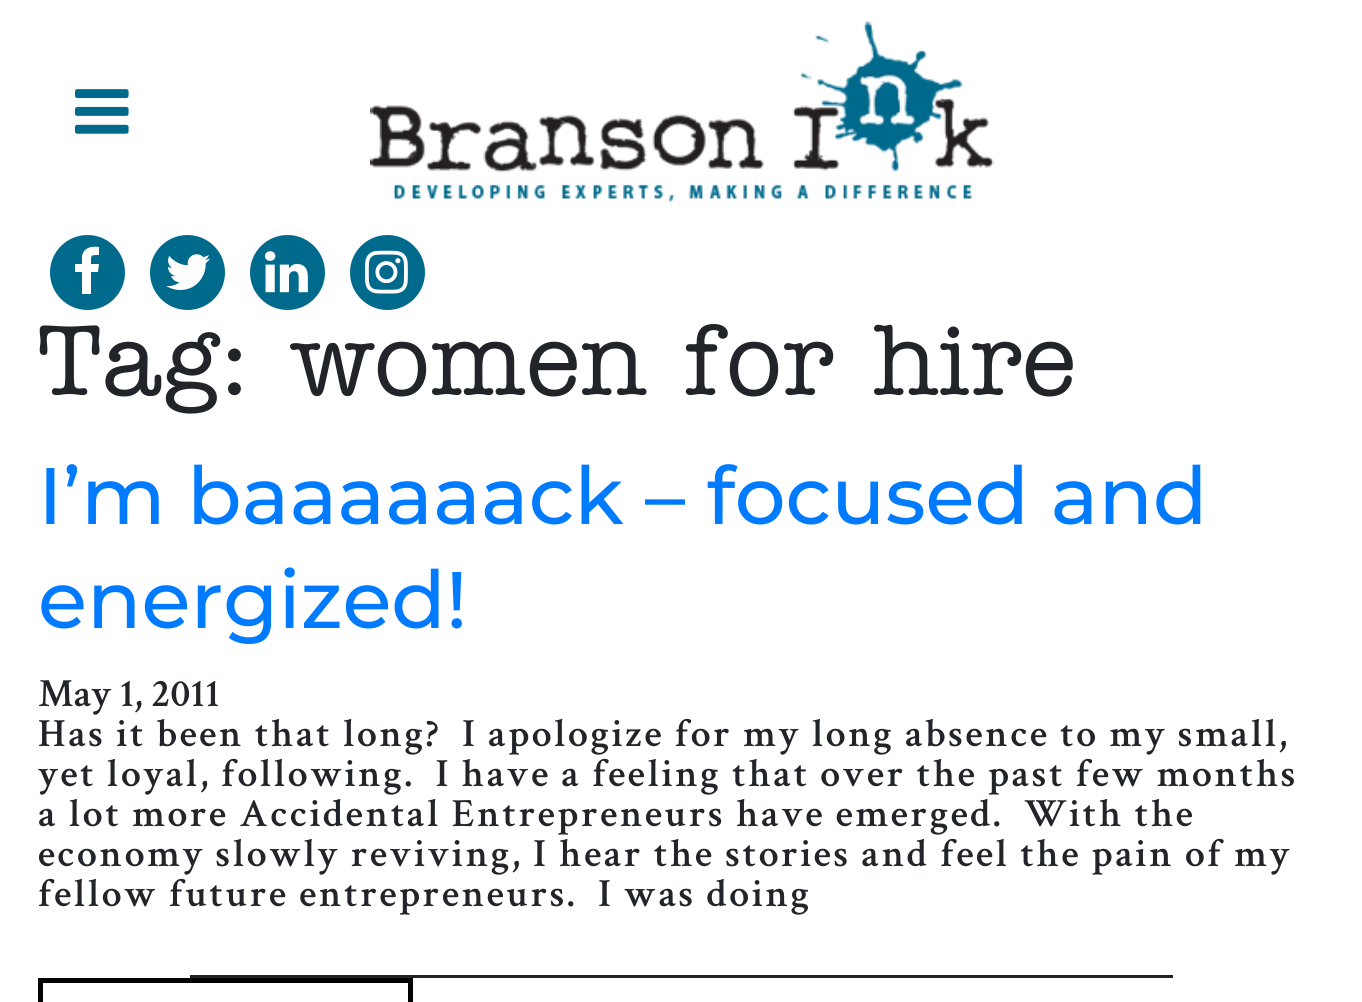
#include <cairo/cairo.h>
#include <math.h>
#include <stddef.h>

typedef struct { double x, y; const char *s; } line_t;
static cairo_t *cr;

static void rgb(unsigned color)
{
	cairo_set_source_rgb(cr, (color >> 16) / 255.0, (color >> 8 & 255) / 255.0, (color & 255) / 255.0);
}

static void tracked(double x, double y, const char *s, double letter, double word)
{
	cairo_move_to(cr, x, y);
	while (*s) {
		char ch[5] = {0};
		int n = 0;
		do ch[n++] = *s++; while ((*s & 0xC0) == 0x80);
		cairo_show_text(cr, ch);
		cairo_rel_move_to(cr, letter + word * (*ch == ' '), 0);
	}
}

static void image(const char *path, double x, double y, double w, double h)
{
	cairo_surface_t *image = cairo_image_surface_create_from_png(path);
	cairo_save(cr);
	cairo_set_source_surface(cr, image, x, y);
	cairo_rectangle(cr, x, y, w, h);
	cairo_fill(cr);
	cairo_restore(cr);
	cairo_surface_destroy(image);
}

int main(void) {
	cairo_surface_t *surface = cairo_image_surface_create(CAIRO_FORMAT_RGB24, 1362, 1002);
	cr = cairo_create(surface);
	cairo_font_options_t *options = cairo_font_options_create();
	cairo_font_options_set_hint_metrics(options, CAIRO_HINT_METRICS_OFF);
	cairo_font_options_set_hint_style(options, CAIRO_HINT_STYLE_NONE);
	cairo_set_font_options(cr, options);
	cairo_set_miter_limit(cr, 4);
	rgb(0xffffff);
	cairo_paint(cr);
	image("img/1.png", 75, 89, 54, 45);
	image("img/2.png", 370, 21, 625, 182);
	rgb(0x006a8d);
	cairo_arc(cr, 87.5, 272.5, 37.5, 0, 2 * M_PI);
	cairo_fill(cr);
	rgb(0xffffff);
	cairo_new_path(cr);
	cairo_move_to(cr, 99, 247);
	cairo_line_to(cr, 99, 255);
	cairo_curve_to(cr, 90, 255, 91, 255, 91, 264);
	cairo_line_to(cr, 99, 264);
	cairo_line_to(cr, 98, 272);
	cairo_line_to(cr, 91, 272);
	cairo_line_to(cr, 91, 294);
	cairo_line_to(cr, 82, 294);
	cairo_line_to(cr, 82, 272);
	cairo_line_to(cr, 75, 272);
	cairo_line_to(cr, 75, 264);
	cairo_line_to(cr, 82, 264);
	cairo_line_to(cr, 82, 256);
	cairo_curve_to(cr, 84, 247, 92, 246, 99, 247);
	cairo_close_path(cr);
	cairo_fill(cr);
	rgb(0x006a8d);
	cairo_arc(cr, 187.5, 272.5, 37.5, 0, 2 * M_PI);
	cairo_fill(cr);
	image("img/3.png", 166, 254, 44, 36);
	cairo_arc(cr, 287.5, 272.5, 37.5, 0, 2 * M_PI);
	cairo_fill(cr);
	image("img/4.png", 265, 251, 43, 42);
	cairo_arc(cr, 387.5, 272.5, 37.5, 0, 2 * M_PI);
	cairo_fill(cr);
	image("img/5.png", 365, 250, 43, 44);
	rgb(0x232323);
	cairo_rectangle(cr, 190, 975, 983, 3);
	cairo_fill(cr);
	cairo_rectangle(cr, 40.5, 980.5, 370, 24);
	rgb(0x000000);
	cairo_set_line_width(cr, 5);
	cairo_stroke(cr);
	cairo_select_font_face(cr, "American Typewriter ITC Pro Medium", CAIRO_FONT_SLANT_NORMAL, CAIRO_FONT_WEIGHT_NORMAL);
	cairo_set_font_size(cr, 100);
	rgb(0x212529);
	cairo_move_to(cr, 38, 394);
	cairo_show_text(cr, "Tag: women for hire");
	cairo_select_font_face(cr, "Montserrat Medium", CAIRO_FONT_SLANT_NORMAL, CAIRO_FONT_WEIGHT_NORMAL);
	cairo_set_font_size(cr, 80);
	rgb(0x007bff);
	cairo_move_to(cr, 38, 524);
	cairo_show_text(cr, "I’m baaaaaack – focused and");
	cairo_move_to(cr, 38, 628);
	cairo_show_text(cr, "energized!");
	cairo_select_font_face(cr, "Crimson Text SemiBold", CAIRO_FONT_SLANT_NORMAL, CAIRO_FONT_WEIGHT_NORMAL);
	cairo_set_font_size(cr, 40);
	rgb(0x212529);
	cairo_move_to(cr, 38, 706);
	cairo_show_text(cr, "May 1, 2011");
	{
		static const line_t items[] = {
			{38, 746, "Has it been that long?  I apologize for my long absence to my small,"},
			{38, 786, "yet loyal, following.  I have a feeling that over the past few months"},
			{38, 826, "a lot more Accidental Entrepreneurs have emerged.  With the"},
			{38, 866, "economy slowly reviving, I hear the stories and feel the pain of my"},
			{38, 906, "fellow future entrepreneurs.  I was doing"},
		};
		for (size_t i = 0; i < sizeof items / sizeof *items; i++) {
			tracked(items[i].x, items[i].y, items[i].s, 2.5, 0);
		}
	}
	cairo_surface_write_to_png(surface, "page.png");
	cairo_font_options_destroy(options);
	cairo_destroy(cr);
	cairo_surface_destroy(surface);
	return 0;
}
